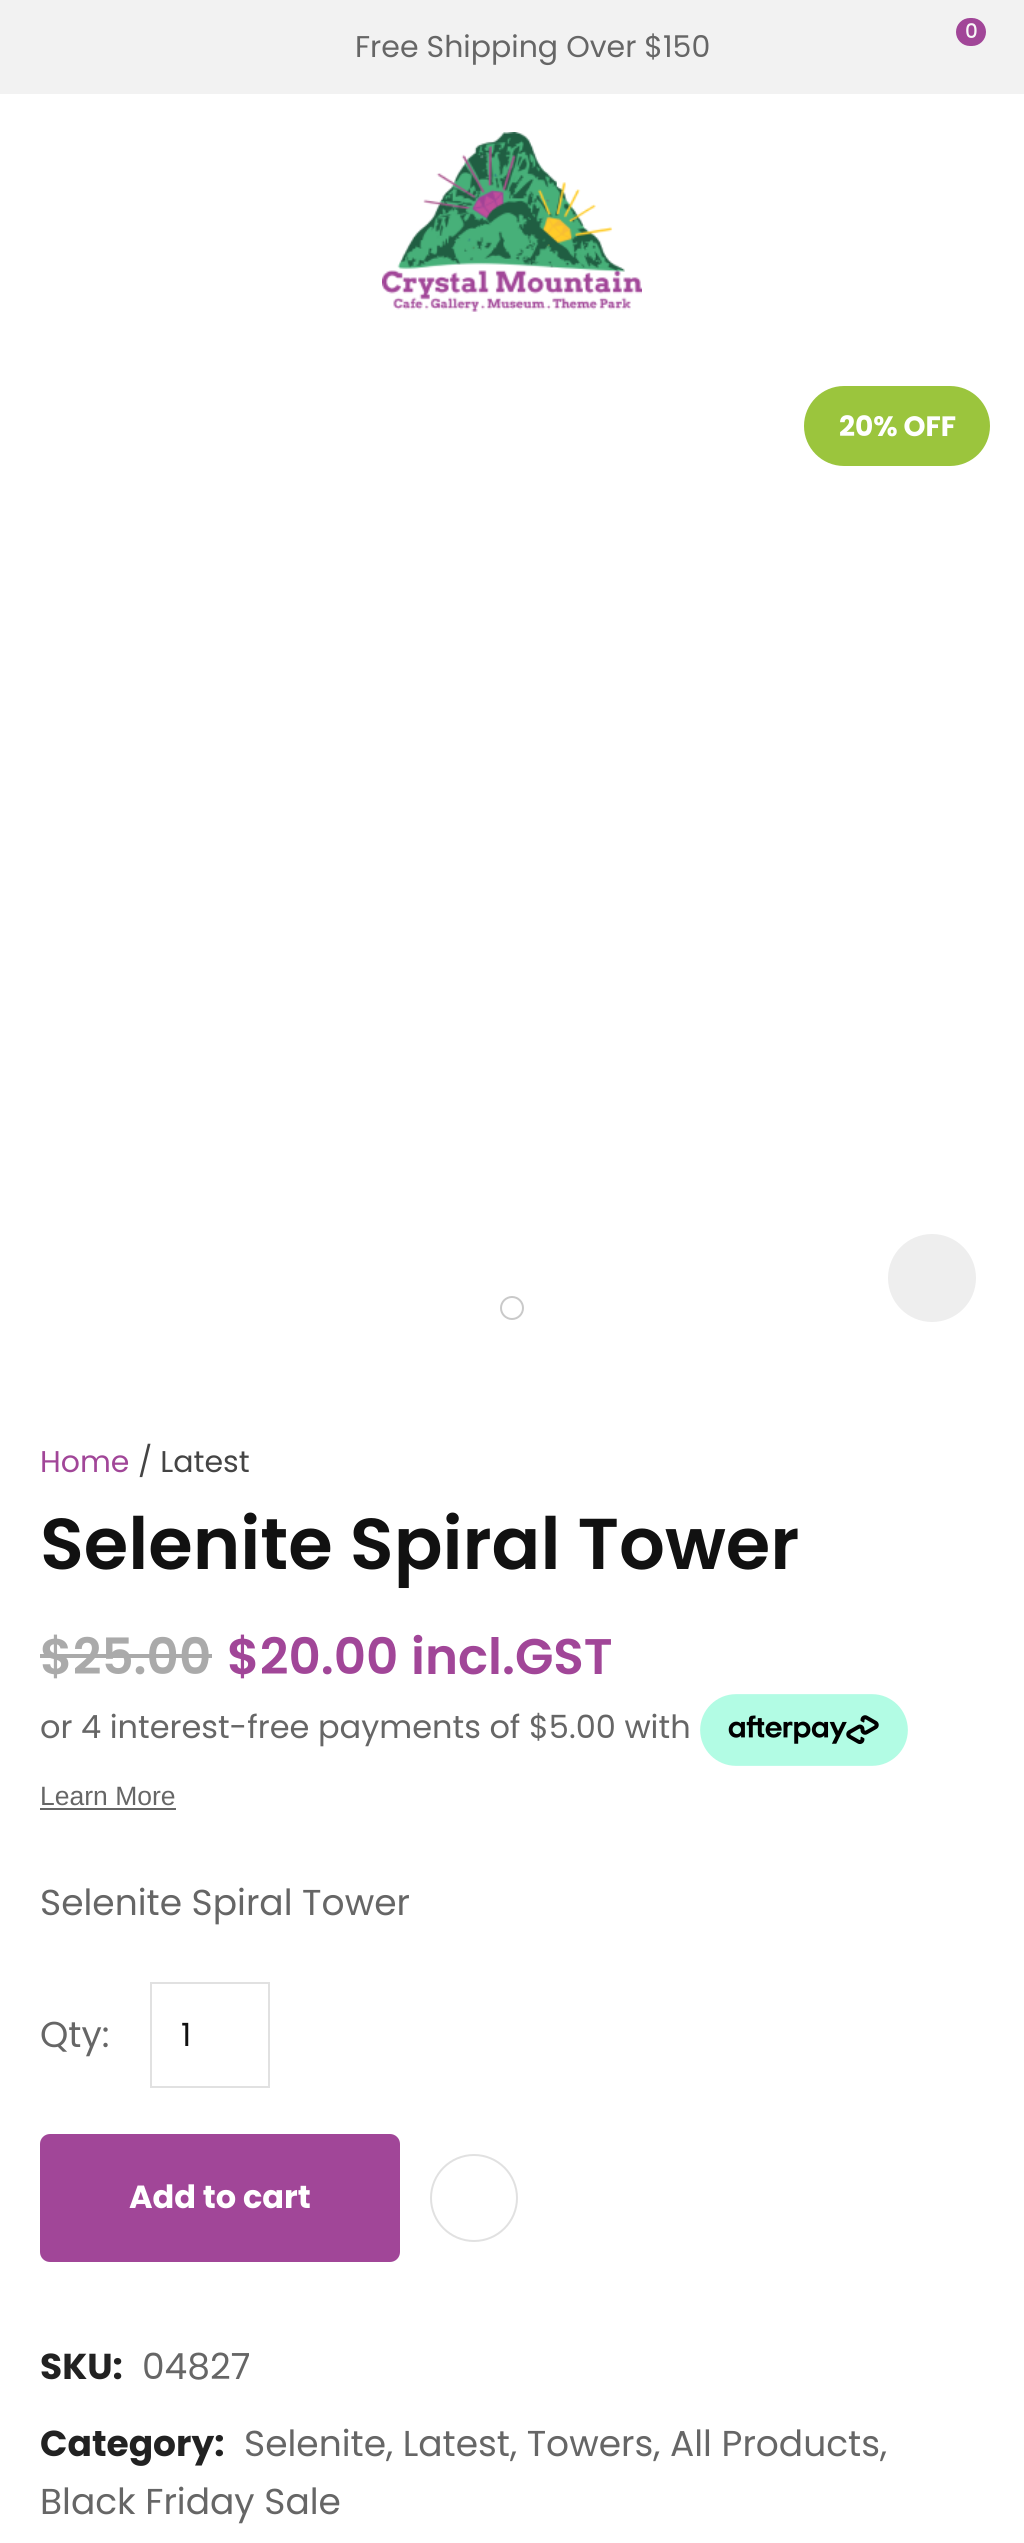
#include <cairo/cairo.h>
#include <math.h>
#include <stddef.h>

static cairo_t *cr;

static void rgb(unsigned color)
{
	cairo_set_source_rgb(cr, (color >> 16) / 255.0, (color >> 8 & 255) / 255.0, (color & 255) / 255.0);
}

static void rrect(double x, double y, double w, double h, double r)
{
	cairo_new_sub_path(cr);
	cairo_arc(cr, x + w - r, y + h - r, r, 0, M_PI / 2);
	cairo_arc(cr, x + r, y + h - r, r, M_PI / 2, M_PI);
	cairo_arc(cr, x + r, y + r, r, M_PI, 1.5 * M_PI);
	cairo_arc(cr, x + w - r, y + r, r, 1.5 * M_PI, 2 * M_PI);
	cairo_close_path(cr);
}

static void image(const char *path, double x, double y, double w, double h)
{
	cairo_surface_t *image = cairo_image_surface_create_from_png(path);
	cairo_save(cr);
	cairo_set_source_surface(cr, image, x, y);
	cairo_rectangle(cr, x, y, w, h);
	cairo_fill(cr);
	cairo_restore(cr);
	cairo_surface_destroy(image);
}

int main(void) {
	cairo_surface_t *surface = cairo_image_surface_create(CAIRO_FORMAT_RGB24, 1024, 2543);
	cr = cairo_create(surface);
	cairo_font_options_t *options = cairo_font_options_create();
	cairo_font_options_set_hint_metrics(options, CAIRO_HINT_METRICS_OFF);
	cairo_font_options_set_hint_style(options, CAIRO_HINT_STYLE_NONE);
	cairo_set_font_options(cr, options);
	cairo_set_miter_limit(cr, 4);
	rgb(0xffffff);
	cairo_paint(cr);
	rgb(0xf2f2f2);
	cairo_rectangle(cr, 0, 0, 1024, 94);
	cairo_fill(cr);
	rgb(0xa14698);
	rrect(956, 18, 30, 28, 14);
	cairo_fill(cr);
	image("img/1.png", 382, 132, 260, 180);
	rgb(0x9bc53d);
	rrect(804, 386, 186, 80, 40);
	cairo_fill(cr);
	cairo_arc(cr, 512, 1308, 11, 0, 2 * M_PI);
	rgb(0xc9c9c9);
	cairo_stroke(cr);
	rgb(0xeeeeee);
	cairo_arc(cr, 932, 1278, 44, 0, 2 * M_PI);
	cairo_fill(cr);
	rgb(0xaaaaaa);
	cairo_rectangle(cr, 40, 1654, 172, 4);
	cairo_fill(cr);
	image("img/2.png", 700, 1694, 208, 72);
	rgb(0x666666);
	cairo_rectangle(cr, 40, 1808, 136, 2);
	cairo_fill(cr);
	cairo_rectangle(cr, 151, 1983, 118, 104);
	rgb(0xe1e1e1);
	cairo_stroke(cr);
	rgb(0xa14698);
	rrect(40, 2134, 360, 128, 10);
	cairo_fill(cr);
	cairo_arc(cr, 474, 2198, 43, 0, 2 * M_PI);
	rgb(0xe1e1e1);
	cairo_stroke(cr);
	cairo_select_font_face(cr, "Poppins Medium", CAIRO_FONT_SLANT_NORMAL, CAIRO_FONT_WEIGHT_NORMAL);
	cairo_set_font_size(cr, 20);
	rgb(0xf8f8f8);
	cairo_move_to(cr, 965, 38);
	cairo_show_text(cr, "0");
	cairo_select_font_face(cr, "Poppins", CAIRO_FONT_SLANT_NORMAL, CAIRO_FONT_WEIGHT_NORMAL);
	cairo_set_font_size(cr, 30);
	rgb(0x666666);
	cairo_move_to(cr, 355, 57);
	cairo_show_text(cr, "Free Shipping Over $150");
	cairo_select_font_face(cr, "Poppins", CAIRO_FONT_SLANT_NORMAL, CAIRO_FONT_WEIGHT_BOLD);
	cairo_set_font_size(cr, 28);
	rgb(0xffffff);
	cairo_move_to(cr, 839, 436);
	cairo_show_text(cr, "20% OFF");
	cairo_select_font_face(cr, "Poppins", CAIRO_FONT_SLANT_NORMAL, CAIRO_FONT_WEIGHT_NORMAL);
	cairo_set_font_size(cr, 30);
	rgb(0xa14698);
	cairo_move_to(cr, 40, 1472);
	cairo_show_text(cr, "Home");
	rgb(0x444444);
	cairo_move_to(cr, 138, 1472);
	cairo_show_text(cr, "/ Latest");
	cairo_select_font_face(cr, "Poppins SemiBold", CAIRO_FONT_SLANT_NORMAL, CAIRO_FONT_WEIGHT_NORMAL);
	cairo_set_font_size(cr, 72);
	rgb(0x111111);
	cairo_move_to(cr, 40, 1569);
	cairo_show_text(cr, "Selenite Spiral Tower");
	cairo_set_font_size(cr, 50);
	rgb(0xaaaaaa);
	cairo_move_to(cr, 40, 1674);
	cairo_show_text(cr, "$25.00");
	rgb(0xa14698);
	cairo_move_to(cr, 227, 1674);
	cairo_show_text(cr, "$20.00");
	cairo_move_to(cr, 411, 1674);
	cairo_show_text(cr, "incl.GST");
	cairo_select_font_face(cr, "Poppins", CAIRO_FONT_SLANT_NORMAL, CAIRO_FONT_WEIGHT_NORMAL);
	cairo_set_font_size(cr, 32);
	rgb(0x666666);
	cairo_move_to(cr, 40, 1738);
	cairo_show_text(cr, "or 4 interest-free payments of $5.00 with");
	cairo_select_font_face(cr, "Liberation Sans", CAIRO_FONT_SLANT_NORMAL, CAIRO_FONT_WEIGHT_NORMAL);
	cairo_set_font_size(cr, 26.5);
	cairo_move_to(cr, 40, 1805);
	cairo_show_text(cr, "Learn More");
	cairo_select_font_face(cr, "Poppins", CAIRO_FONT_SLANT_NORMAL, CAIRO_FONT_WEIGHT_NORMAL);
	cairo_set_font_size(cr, 36);
	cairo_move_to(cr, 40, 1915);
	cairo_show_text(cr, "Selenite Spiral Tower");
	cairo_move_to(cr, 40, 2047);
	cairo_show_text(cr, "Qty:");
	cairo_set_font_size(cr, 32);
	rgb(0x111111);
	cairo_move_to(cr, 181, 2046);
	cairo_show_text(cr, "1");
	cairo_select_font_face(cr, "Poppins", CAIRO_FONT_SLANT_NORMAL, CAIRO_FONT_WEIGHT_BOLD);
	rgb(0xffffff);
	cairo_move_to(cr, 129, 2208);
	cairo_show_text(cr, "Add to cart");
	cairo_set_font_size(cr, 36);
	rgb(0x222222);
	cairo_move_to(cr, 40, 2379);
	cairo_show_text(cr, "SKU:");
	cairo_select_font_face(cr, "Poppins", CAIRO_FONT_SLANT_NORMAL, CAIRO_FONT_WEIGHT_NORMAL);
	rgb(0x666666);
	cairo_move_to(cr, 142, 2379);
	cairo_show_text(cr, "04827");
	cairo_select_font_face(cr, "Poppins", CAIRO_FONT_SLANT_NORMAL, CAIRO_FONT_WEIGHT_BOLD);
	rgb(0x222222);
	cairo_move_to(cr, 40, 2456);
	cairo_show_text(cr, "Category:");
	cairo_select_font_face(cr, "Poppins", CAIRO_FONT_SLANT_NORMAL, CAIRO_FONT_WEIGHT_NORMAL);
	rgb(0x666666);
	cairo_move_to(cr, 244, 2456);
	cairo_show_text(cr, "Selenite, Latest, Towers, All Products,");
	cairo_move_to(cr, 40, 2514);
	cairo_show_text(cr, "Black Friday Sale");
	cairo_surface_write_to_png(surface, "page.png");
	cairo_font_options_destroy(options);
	cairo_destroy(cr);
	cairo_surface_destroy(surface);
	return 0;
}
